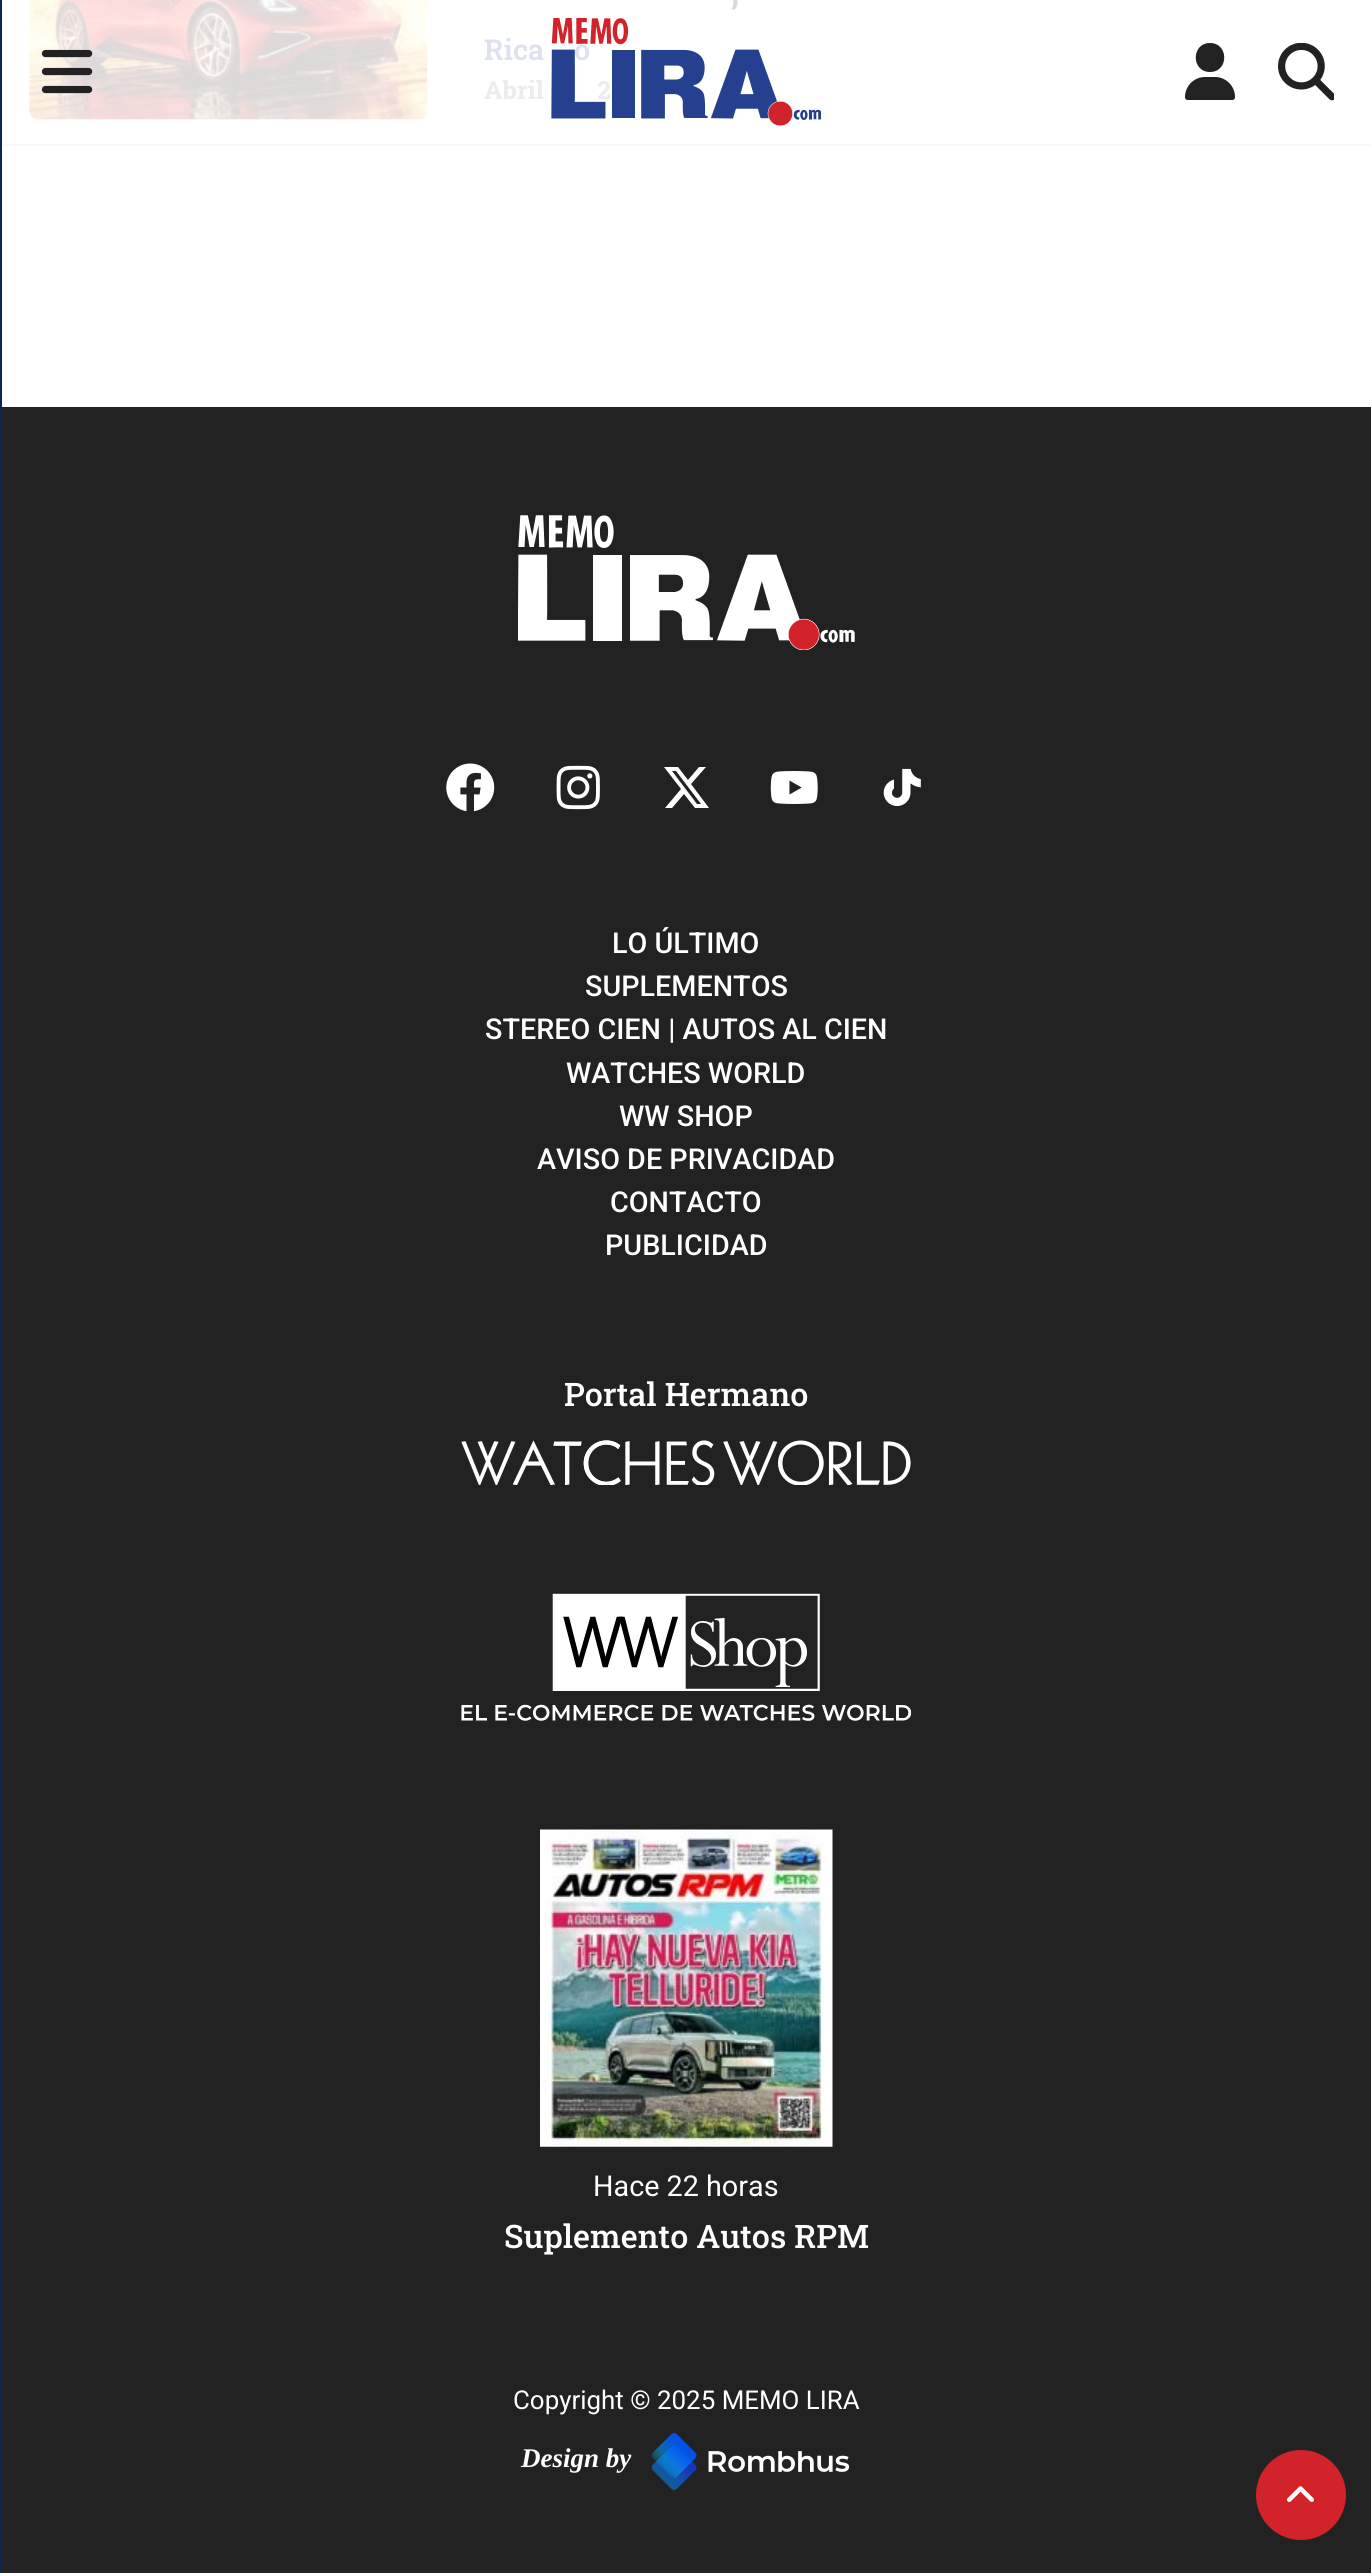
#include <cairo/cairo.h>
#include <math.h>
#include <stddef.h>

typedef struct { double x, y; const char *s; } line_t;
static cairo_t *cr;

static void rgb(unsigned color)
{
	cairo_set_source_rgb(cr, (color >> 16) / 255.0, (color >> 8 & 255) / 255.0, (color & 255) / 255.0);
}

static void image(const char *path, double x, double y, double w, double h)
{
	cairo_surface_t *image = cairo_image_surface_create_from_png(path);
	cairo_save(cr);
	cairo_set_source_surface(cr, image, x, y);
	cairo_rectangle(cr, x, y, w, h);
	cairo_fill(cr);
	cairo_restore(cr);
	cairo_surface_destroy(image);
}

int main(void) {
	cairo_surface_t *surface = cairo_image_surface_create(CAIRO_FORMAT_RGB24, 1371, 2573);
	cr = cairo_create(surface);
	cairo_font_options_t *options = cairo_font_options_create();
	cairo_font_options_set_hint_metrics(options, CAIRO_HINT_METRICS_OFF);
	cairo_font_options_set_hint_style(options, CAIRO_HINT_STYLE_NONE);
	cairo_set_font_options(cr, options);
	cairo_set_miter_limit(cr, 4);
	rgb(0xffffff);
	cairo_paint(cr);
	rgb(0xf8f9fa);
	cairo_rectangle(cr, 0, 144, 1371, 2);
	cairo_fill(cr);
	rgb(0x0e225c);
	cairo_rectangle(cr, 0, 0, 2, 2573);
	cairo_fill(cr);
	image("img/1.png", 29, 0, 399, 120);
	image("img/2.png", 41, 49, 52, 45);
	rgb(0x222222);
	cairo_new_path(cr);
	cairo_move_to(cr, 1210, 72);
	cairo_curve_to(cr, 1229, 72, 1229, 43, 1210, 43);
	cairo_curve_to(cr, 1191, 43, 1191, 72, 1210, 72);
	cairo_close_path(cr);
	cairo_move_to(cr, 1205, 77);
	cairo_curve_to(cr, 1194, 77, 1185, 86, 1185, 97);
	cairo_curve_to(cr, 1185, 99, 1186, 100, 1188, 100);
	cairo_line_to(cr, 1232, 100);
	cairo_curve_to(cr, 1234, 100, 1235, 99, 1235, 97);
	cairo_curve_to(cr, 1235, 86, 1226, 77, 1215, 77);
	cairo_close_path(cr);
	cairo_fill(cr);
	image("img/4.png", 1278, 43, 56, 58);
	cairo_rectangle(cr, 2, 407, 1369, 2166);
	cairo_fill(cr);
	image("img/5.png", 518, 515, 337, 135);
	image("img/6.png", 446, 763, 49, 49);
	image("img/7.png", 556, 765, 44, 45);
	rgb(0xffffff);
	cairo_new_path(cr);
	cairo_move_to(cr, 699, 767);
	cairo_line_to(cr, 706, 767);
	cairo_line_to(cr, 691, 784);
	cairo_line_to(cr, 709, 808);
	cairo_line_to(cr, 695, 808);
	cairo_line_to(cr, 684, 794);
	cairo_line_to(cr, 672, 808);
	cairo_line_to(cr, 665, 808);
	cairo_line_to(cr, 681, 789);
	cairo_line_to(cr, 664, 767);
	cairo_line_to(cr, 678, 767);
	cairo_line_to(cr, 688, 780);
	cairo_close_path(cr);
	cairo_move_to(cr, 697, 804);
	cairo_line_to(cr, 701, 804);
	cairo_line_to(cr, 676, 771);
	cairo_line_to(cr, 672, 771);
	cairo_close_path(cr);
	cairo_fill(cr);
	image("img/8.png", 770, 771, 48, 33);
	image("img/9.png", 883, 768, 38, 38);
	image("img/10.png", 461, 1440, 450, 45);
	image("img/11.png", 461, 1593, 450, 128);
	image("img/12.png", 540, 1829, 293, 318);
	image("img/13.png", 651, 2433, 199, 57);
	rgb(0xd2232a);
	cairo_arc(cr, 1301, 2495, 45, 0, 2 * M_PI);
	cairo_fill(cr);
	image("img/14.png", 1287, 2486, 27, 16);
	cairo_select_font_face(cr, "Roboto Slab Medium", CAIRO_FONT_SLANT_NORMAL, CAIRO_FONT_WEIGHT_NORMAL);
	cairo_set_font_size(cr, 36);
	rgb(0xd9d9d9);
	cairo_move_to(cr, 731, 4);
	cairo_show_text(cr, ",");
	cairo_select_font_face(cr, "Roboto Slab SemiBold", CAIRO_FONT_SLANT_NORMAL, CAIRO_FONT_WEIGHT_NORMAL);
	cairo_set_font_size(cr, 28.75);
	rgb(0xdee2ee);
	cairo_move_to(cr, 484, 60);
	cairo_show_text(cr, "Rica");
	cairo_move_to(cr, 574, 60);
	cairo_show_text(cr, "o");
	cairo_select_font_face(cr, "Roboto Slab", CAIRO_FONT_SLANT_NORMAL, CAIRO_FONT_WEIGHT_BOLD);
	cairo_set_font_size(cr, 25);
	rgb(0xececec);
	cairo_move_to(cr, 484, 99);
	cairo_show_text(cr, "Abril");
	cairo_move_to(cr, 597, 99);
	cairo_show_text(cr, "2");
	image("img/3.png", 551, 18, 270, 108);
	cairo_select_font_face(cr, "Roboto Medium", CAIRO_FONT_SLANT_NORMAL, CAIRO_FONT_WEIGHT_NORMAL);
	cairo_set_font_size(cr, 28.75);
	rgb(0xffffff);
	{
		static const line_t items[] = {
			{612, 953, "LO ÚLTIMO"},
			{585, 996, "SUPLEMENTOS"},
			{485, 1039, "STEREO CIEN | AUTOS AL CIEN"},
			{566, 1083, "WATCHES WORLD"},
			{619, 1126, "WW SHOP"},
			{537, 1169, "AVISO DE PRIVACIDAD"},
			{610, 1212, "CONTACTO"},
			{605, 1255, "PUBLICIDAD"},
		};
		for (size_t i = 0; i < sizeof items / sizeof *items; i++) {
			cairo_move_to(cr, items[i].x, items[i].y);
			cairo_show_text(cr, items[i].s);
		}
	}
	cairo_select_font_face(cr, "Roboto Slab Medium", CAIRO_FONT_SLANT_NORMAL, CAIRO_FONT_WEIGHT_NORMAL);
	cairo_set_font_size(cr, 32.4);
	cairo_move_to(cr, 564, 1406);
	cairo_show_text(cr, "Portal Hermano");
	cairo_select_font_face(cr, "Roboto", CAIRO_FONT_SLANT_NORMAL, CAIRO_FONT_WEIGHT_NORMAL);
	cairo_set_font_size(cr, 28.75);
	cairo_move_to(cr, 593, 2196);
	cairo_show_text(cr, "Hace 22 horas");
	cairo_select_font_face(cr, "Roboto Slab Medium", CAIRO_FONT_SLANT_NORMAL, CAIRO_FONT_WEIGHT_NORMAL);
	cairo_set_font_size(cr, 32.4);
	cairo_move_to(cr, 504, 2248);
	cairo_show_text(cr, "Suplemento Autos RPM");
	cairo_select_font_face(cr, "Roboto", CAIRO_FONT_SLANT_NORMAL, CAIRO_FONT_WEIGHT_NORMAL);
	cairo_set_font_size(cr, 25.9);
	cairo_move_to(cr, 513, 2409);
	cairo_show_text(cr, "Copyright © 2025 MEMO LIRA");
	cairo_select_font_face(cr, "Liberation Serif", CAIRO_FONT_SLANT_ITALIC, CAIRO_FONT_WEIGHT_BOLD);
	cairo_set_font_size(cr, 27);
	cairo_move_to(cr, 521, 2467);
	cairo_show_text(cr, "Design by");
	cairo_surface_write_to_png(surface, "page.png");
	cairo_font_options_destroy(options);
	cairo_destroy(cr);
	cairo_surface_destroy(surface);
	return 0;
}
